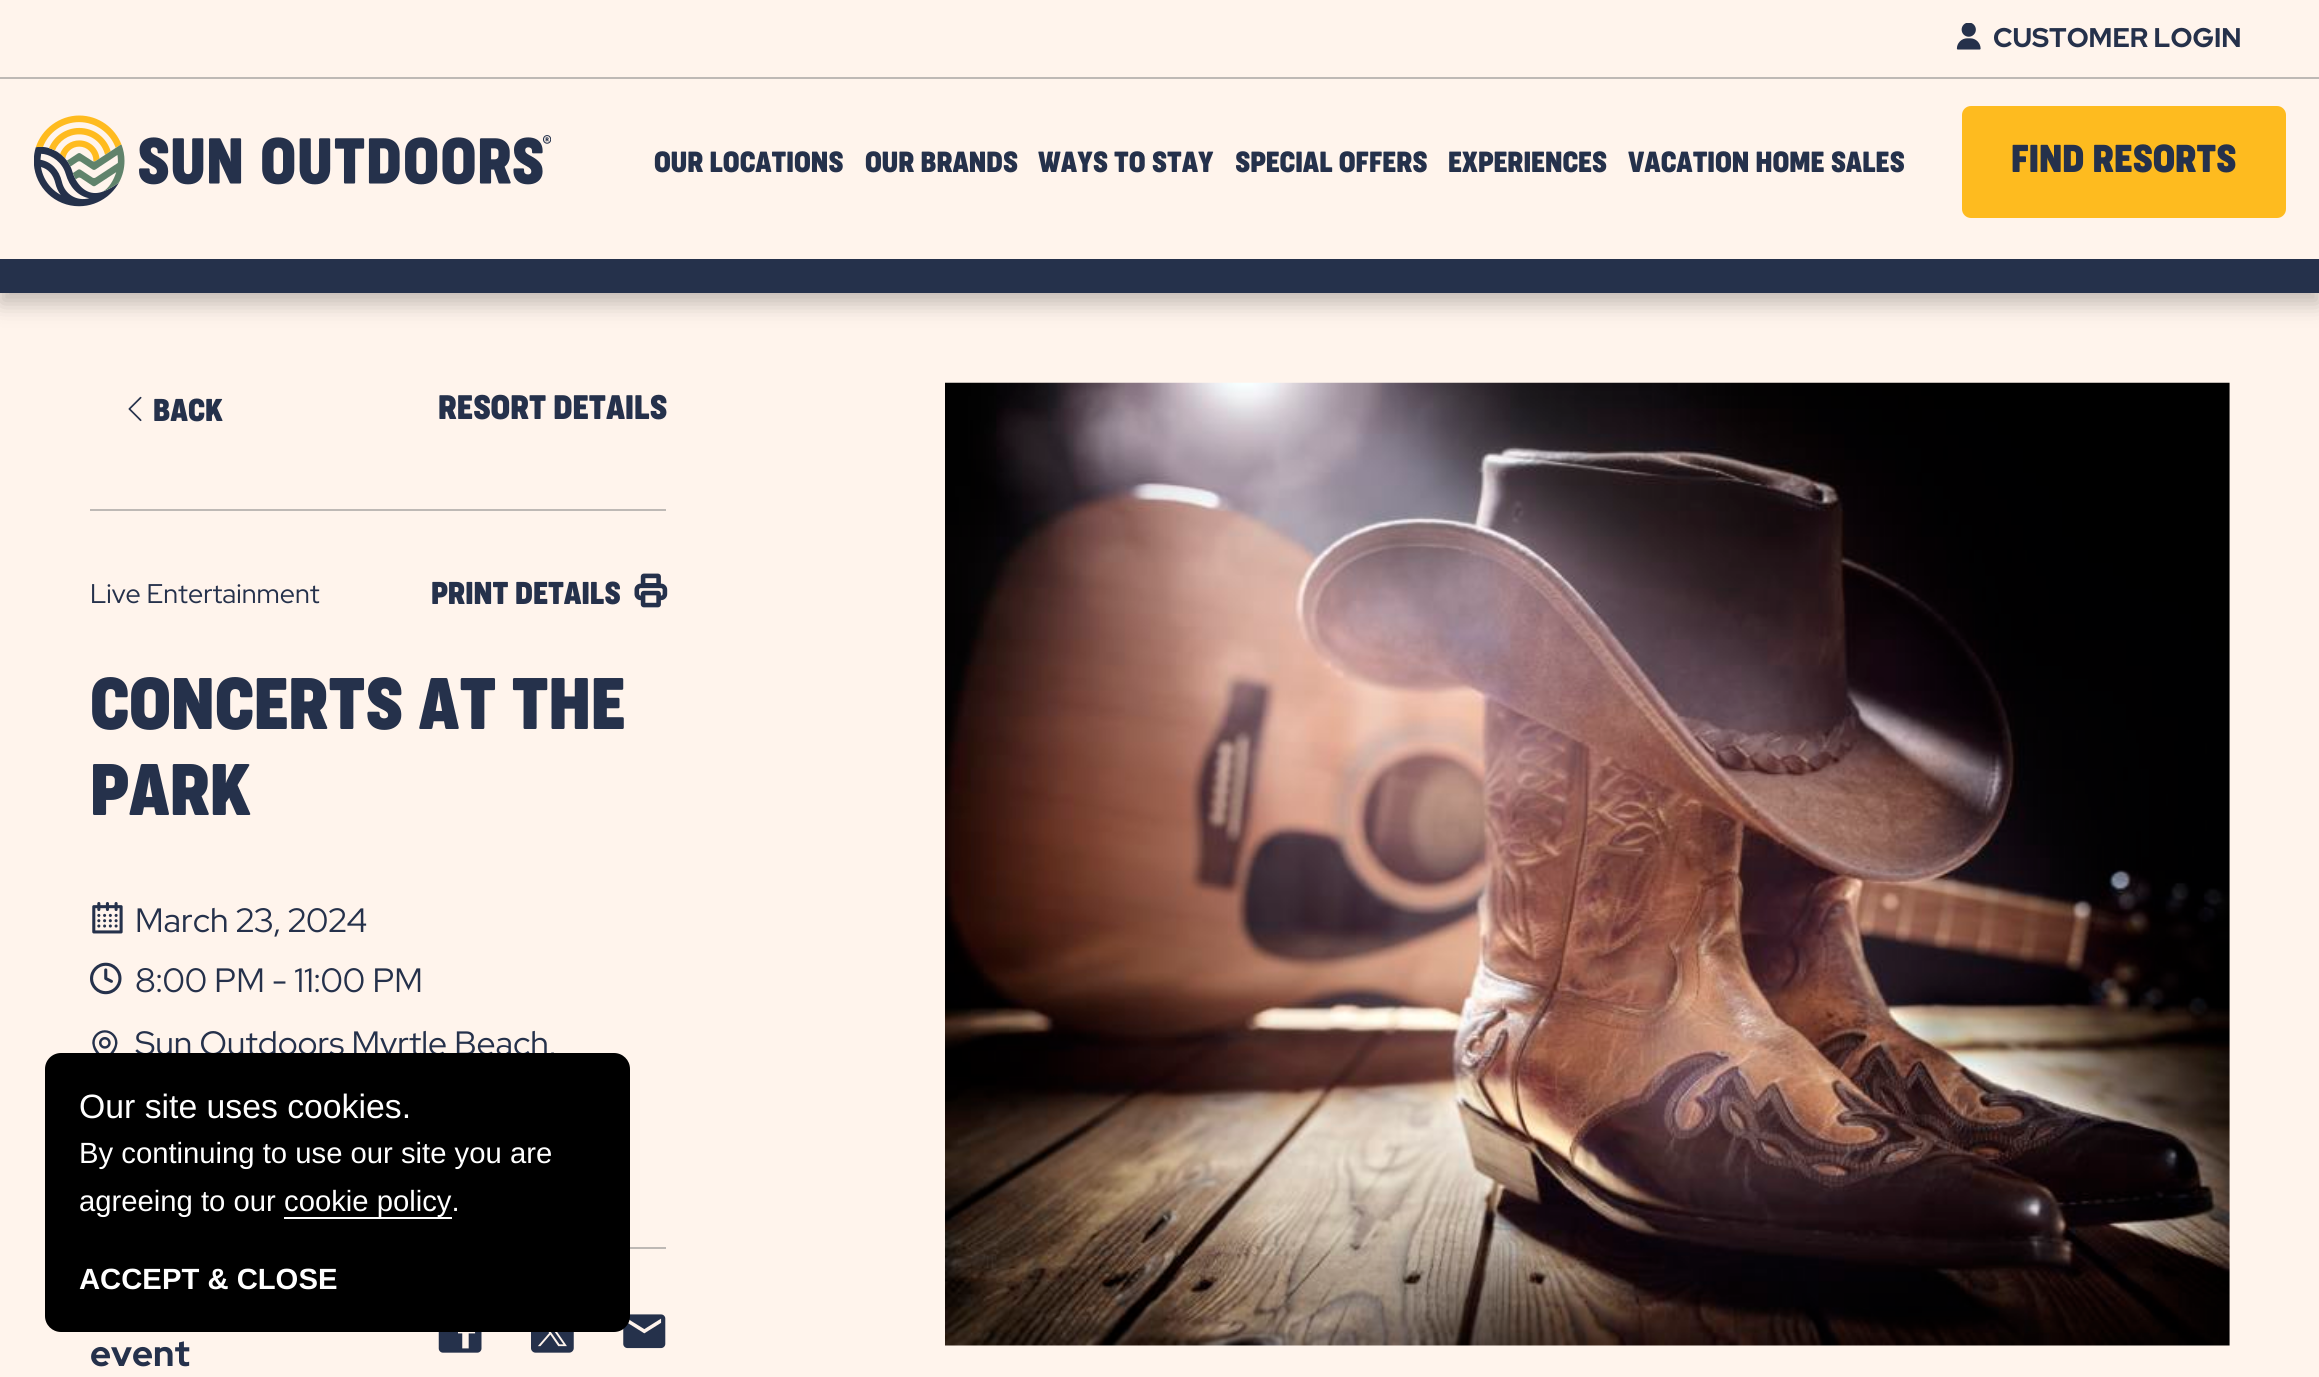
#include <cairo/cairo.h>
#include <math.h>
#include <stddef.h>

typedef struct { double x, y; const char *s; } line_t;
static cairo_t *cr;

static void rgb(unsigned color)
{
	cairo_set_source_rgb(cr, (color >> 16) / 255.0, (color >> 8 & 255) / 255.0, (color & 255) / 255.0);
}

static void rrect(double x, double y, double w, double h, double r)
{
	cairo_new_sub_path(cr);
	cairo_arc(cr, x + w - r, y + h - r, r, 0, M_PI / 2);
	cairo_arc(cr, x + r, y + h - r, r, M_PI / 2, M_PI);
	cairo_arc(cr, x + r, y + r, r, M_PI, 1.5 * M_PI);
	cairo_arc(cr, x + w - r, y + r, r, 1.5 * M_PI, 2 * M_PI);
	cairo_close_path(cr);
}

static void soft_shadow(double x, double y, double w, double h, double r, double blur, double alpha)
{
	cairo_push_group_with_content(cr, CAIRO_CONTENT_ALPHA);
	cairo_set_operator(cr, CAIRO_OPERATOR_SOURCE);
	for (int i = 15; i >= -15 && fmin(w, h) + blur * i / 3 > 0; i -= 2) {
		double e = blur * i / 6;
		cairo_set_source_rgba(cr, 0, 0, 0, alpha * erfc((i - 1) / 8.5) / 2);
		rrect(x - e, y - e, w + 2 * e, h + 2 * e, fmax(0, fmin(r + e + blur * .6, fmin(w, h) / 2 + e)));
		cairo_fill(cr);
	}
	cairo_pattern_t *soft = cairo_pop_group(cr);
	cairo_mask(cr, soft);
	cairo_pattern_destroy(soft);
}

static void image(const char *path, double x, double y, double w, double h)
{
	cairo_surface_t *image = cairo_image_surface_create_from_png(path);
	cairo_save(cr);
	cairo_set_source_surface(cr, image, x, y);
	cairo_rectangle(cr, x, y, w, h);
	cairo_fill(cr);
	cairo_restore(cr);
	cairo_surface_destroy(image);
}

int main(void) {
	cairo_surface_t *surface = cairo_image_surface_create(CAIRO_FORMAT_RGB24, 2319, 1377);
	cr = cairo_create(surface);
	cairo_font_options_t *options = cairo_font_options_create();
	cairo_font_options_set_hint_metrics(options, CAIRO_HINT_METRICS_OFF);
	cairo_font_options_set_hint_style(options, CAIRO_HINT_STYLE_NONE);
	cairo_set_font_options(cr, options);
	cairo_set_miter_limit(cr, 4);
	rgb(0xfff4ec);
	cairo_paint(cr);
	rgb(0x000000);
	soft_shadow(0, 11, 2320, 293, 0, 11, 0.24);
	rgb(0xfff4ec);
	cairo_rectangle(cr, 0, 0, 2319, 259);
	cairo_fill(cr);
	rgb(0xbeb9b5);
	cairo_rectangle(cr, 0, 77, 2319, 2);
	cairo_fill(cr);
	image("img/1.png", 1956, 23, 25, 27);
	rgb(0x25314b);
	cairo_rectangle(cr, 0, 259, 2319, 34);
	cairo_fill(cr);
	image("img/2.png", 34, 115, 517, 92);
	rgb(0xfebb1f);
	rrect(1962, 106, 324, 112, 9);
	cairo_fill(cr);
	image("img/3.png", 128, 396, 14, 26);
	rgb(0xbeb9b5);
	cairo_rectangle(cr, 90, 509, 576, 2);
	cairo_fill(cr);
	image("img/4.png", 634, 573, 34, 35);
	cairo_rectangle(cr, 630, 1247, 36, 2);
	cairo_fill(cr);
	image("img/5.png", 92, 902, 31, 32);
	image("img/6.png", 90, 962, 32, 33);
	image("img/7.png", 92, 1030, 26, 23);
	image("img/8.png", 438, 1332, 44, 21);
	image("img/9.png", 531, 1332, 43, 21);
	image("img/10.png", 623, 1314, 43, 35);
	image("img/11.png", 945, 382, 1285, 964);
	cairo_select_font_face(cr, "Red Hat Display", CAIRO_FONT_SLANT_NORMAL, CAIRO_FONT_WEIGHT_BOLD);
	cairo_set_font_size(cr, 27);
	rgb(0x25314b);
	cairo_move_to(cr, 1993, 47);
	cairo_show_text(cr, "CUSTOMER LOGIN");
	cairo_select_font_face(cr, "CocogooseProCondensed", CAIRO_FONT_SLANT_NORMAL, CAIRO_FONT_WEIGHT_BOLD);
	{
		static const line_t items[] = {
			{654, 172, "OUR LOCATIONS"},
			{865, 172, "OUR BRANDS"},
			{1038, 172, "WAYS TO STAY"},
			{1235, 172, "SPECIAL OFFERS"},
			{1448, 172, "EXPERIENCES"},
			{1628, 172, "VACATION HOME SALES"},
		};
		for (size_t i = 0; i < sizeof items / sizeof *items; i++) {
			cairo_move_to(cr, items[i].x, items[i].y);
			cairo_show_text(cr, items[i].s);
		}
	}
	cairo_set_font_size(cr, 36);
	cairo_move_to(cr, 2011, 172);
	cairo_show_text(cr, "FIND RESORTS");
	cairo_set_font_size(cr, 29.25);
	cairo_move_to(cr, 153, 421);
	cairo_show_text(cr, "BACK");
	cairo_set_font_size(cr, 31.5);
	cairo_move_to(cr, 438, 419);
	cairo_show_text(cr, "RESORT DETAILS");
	cairo_select_font_face(cr, "Red Hat Display", CAIRO_FONT_SLANT_NORMAL, CAIRO_FONT_WEIGHT_NORMAL);
	cairo_set_font_size(cr, 27);
	cairo_move_to(cr, 90, 603);
	cairo_show_text(cr, "Live Entertainment");
	cairo_select_font_face(cr, "CocogooseProCondensed", CAIRO_FONT_SLANT_NORMAL, CAIRO_FONT_WEIGHT_BOLD);
	cairo_set_font_size(cr, 29.25);
	cairo_move_to(cr, 431, 604);
	cairo_show_text(cr, "PRINT DETAILS");
	cairo_set_font_size(cr, 67.5);
	cairo_move_to(cr, 90, 729);
	cairo_show_text(cr, "CONCERTS AT THE");
	cairo_move_to(cr, 90, 815);
	cairo_show_text(cr, "PARK");
	cairo_select_font_face(cr, "Red Hat Display", CAIRO_FONT_SLANT_NORMAL, CAIRO_FONT_WEIGHT_NORMAL);
	cairo_set_font_size(cr, 33.75);
	{
		static const line_t items[] = {
			{135, 932, "March 23, 2024"},
			{135, 992, "8:00 PM - 11:00 PM"},
			{135, 1055, "Sun Outdoors Myrtle Beach,"},
		};
		for (size_t i = 0; i < sizeof items / sizeof *items; i++) {
			cairo_move_to(cr, items[i].x, items[i].y);
			cairo_show_text(cr, items[i].s);
		}
	}
	cairo_select_font_face(cr, "Red Hat Display", CAIRO_FONT_SLANT_NORMAL, CAIRO_FONT_WEIGHT_BOLD);
	cairo_set_font_size(cr, 36);
	cairo_move_to(cr, 90, 1366);
	cairo_show_text(cr, "event");
	rgb(0x000000);
	rrect(45, 1053, 585, 279, 16);
	cairo_fill(cr);
	cairo_select_font_face(cr, "Liberation Sans", CAIRO_FONT_SLANT_NORMAL, CAIRO_FONT_WEIGHT_NORMAL);
	cairo_set_font_size(cr, 33.75);
	rgb(0xffffff);
	cairo_move_to(cr, 79, 1118);
	cairo_show_text(cr, "Our site uses cookies.");
	cairo_set_font_size(cr, 29.25);
	cairo_move_to(cr, 79, 1163);
	cairo_show_text(cr, "By continuing to use our site you are");
	cairo_move_to(cr, 79, 1211);
	cairo_show_text(cr, "agreeing to our");
	cairo_rectangle(cr, 284, 1217, 168, 2);
	cairo_fill(cr);
	cairo_move_to(cr, 284, 1211);
	cairo_show_text(cr, "cookie policy.");
	cairo_select_font_face(cr, "Liberation Sans", CAIRO_FONT_SLANT_NORMAL, CAIRO_FONT_WEIGHT_BOLD);
	cairo_move_to(cr, 79, 1289);
	cairo_show_text(cr, "ACCEPT & CLOSE");
	cairo_surface_write_to_png(surface, "page.png");
	cairo_font_options_destroy(options);
	cairo_destroy(cr);
	cairo_surface_destroy(surface);
	return 0;
}
